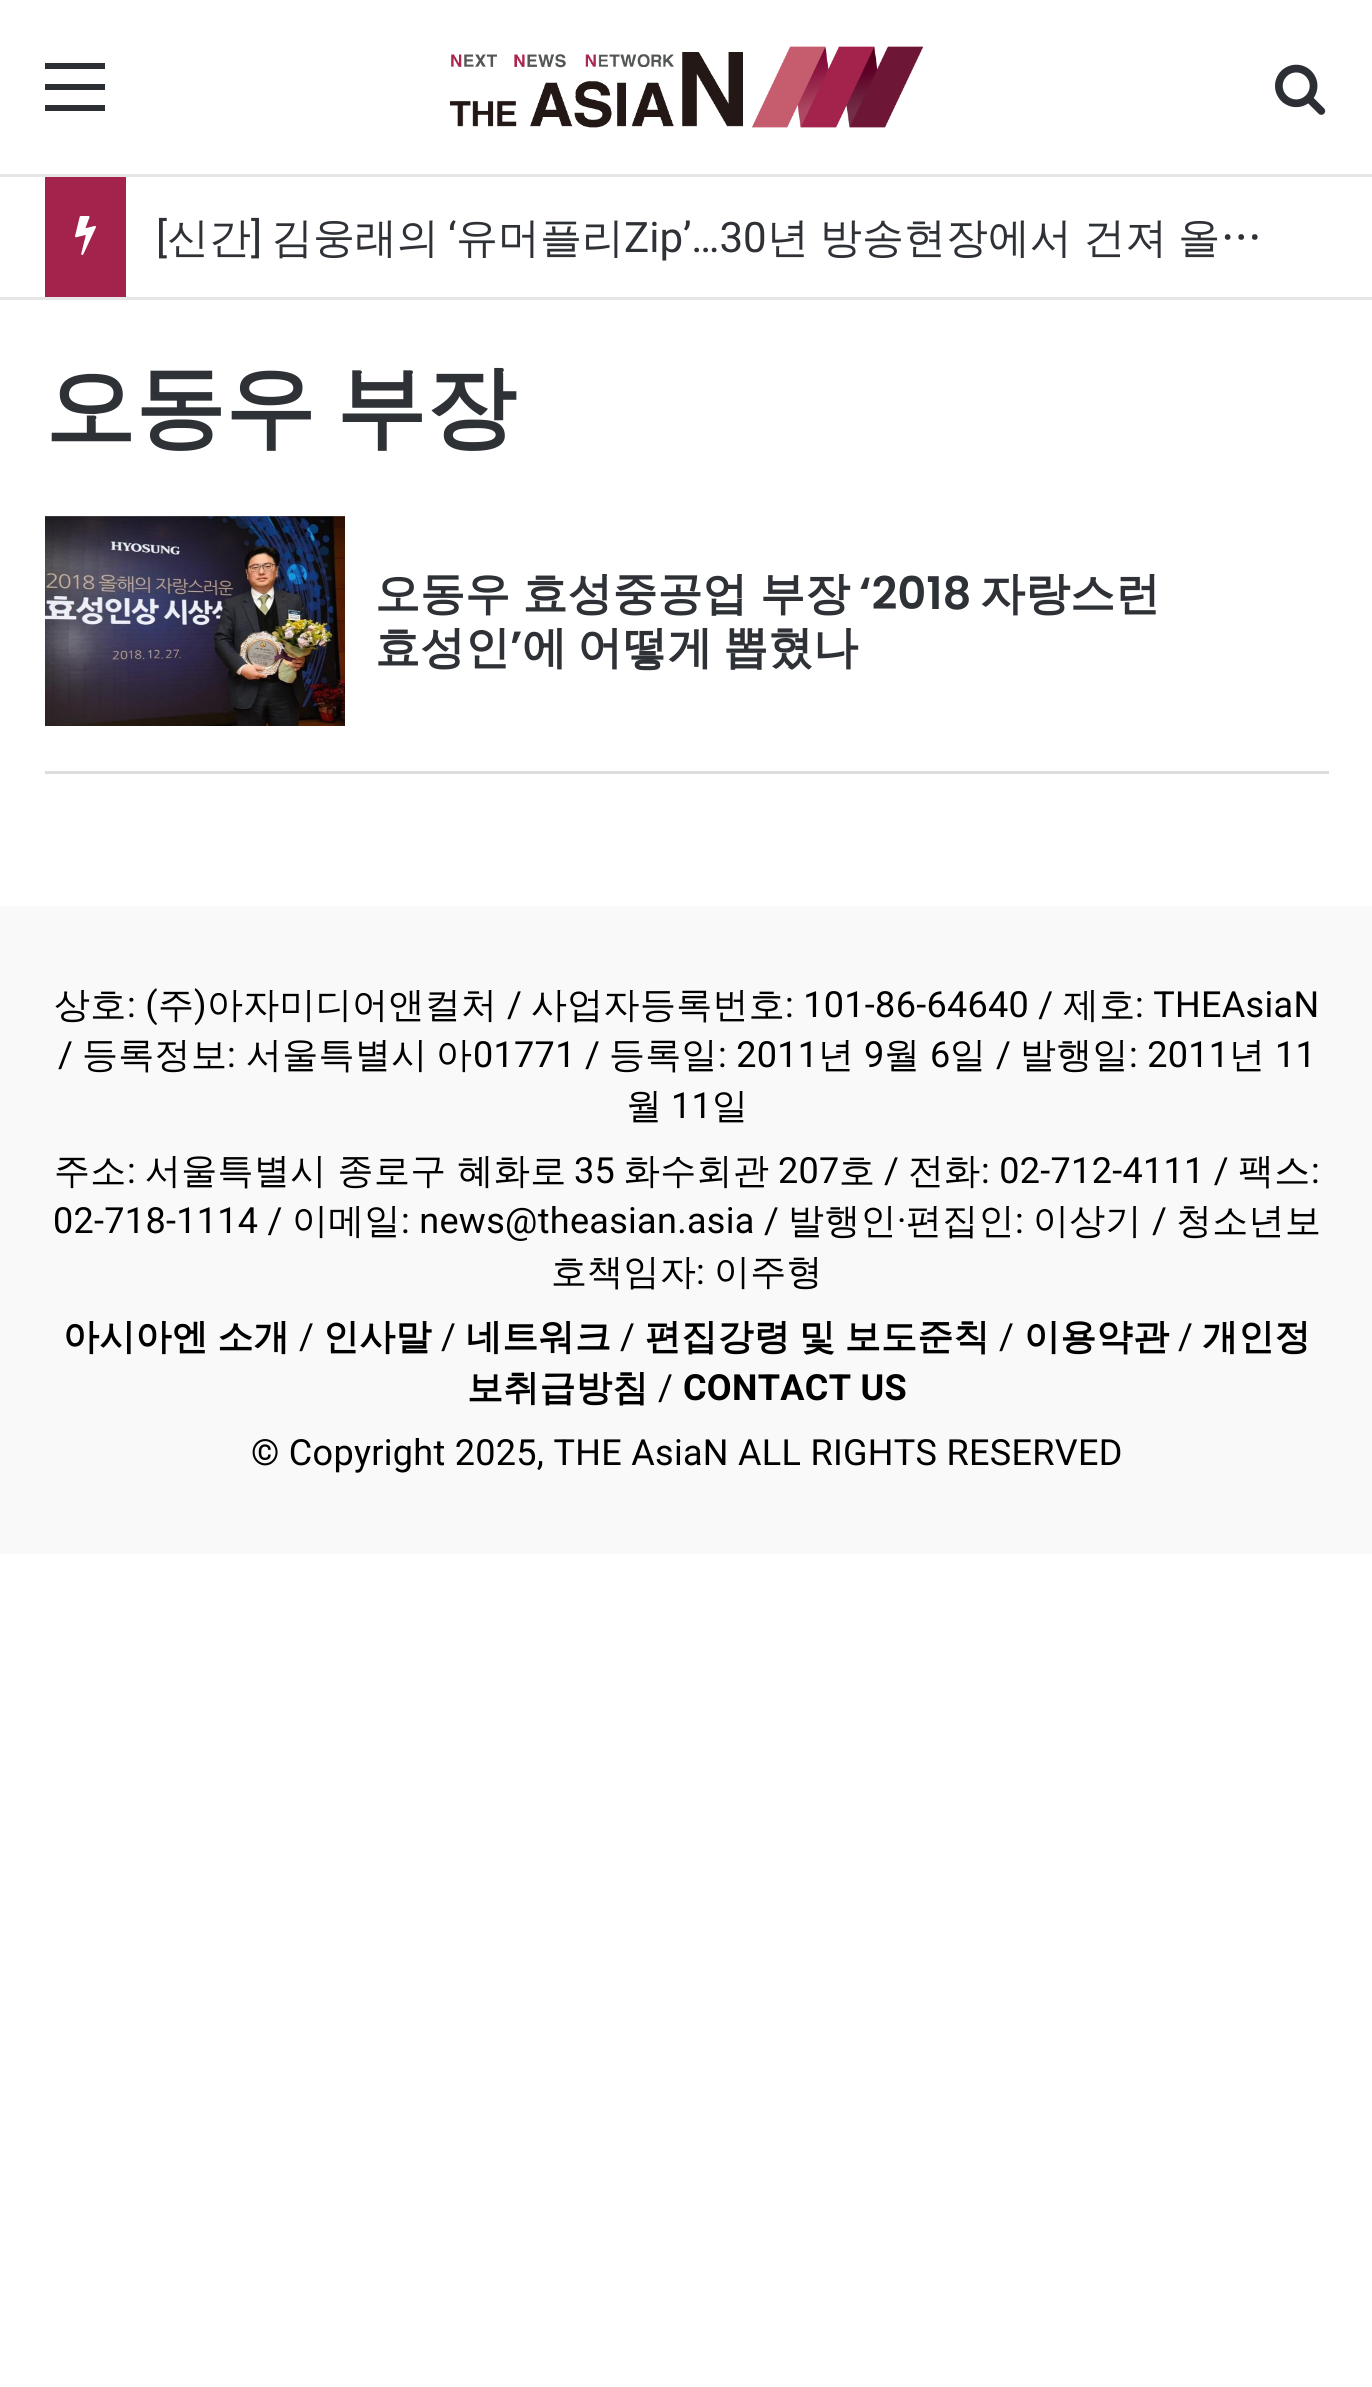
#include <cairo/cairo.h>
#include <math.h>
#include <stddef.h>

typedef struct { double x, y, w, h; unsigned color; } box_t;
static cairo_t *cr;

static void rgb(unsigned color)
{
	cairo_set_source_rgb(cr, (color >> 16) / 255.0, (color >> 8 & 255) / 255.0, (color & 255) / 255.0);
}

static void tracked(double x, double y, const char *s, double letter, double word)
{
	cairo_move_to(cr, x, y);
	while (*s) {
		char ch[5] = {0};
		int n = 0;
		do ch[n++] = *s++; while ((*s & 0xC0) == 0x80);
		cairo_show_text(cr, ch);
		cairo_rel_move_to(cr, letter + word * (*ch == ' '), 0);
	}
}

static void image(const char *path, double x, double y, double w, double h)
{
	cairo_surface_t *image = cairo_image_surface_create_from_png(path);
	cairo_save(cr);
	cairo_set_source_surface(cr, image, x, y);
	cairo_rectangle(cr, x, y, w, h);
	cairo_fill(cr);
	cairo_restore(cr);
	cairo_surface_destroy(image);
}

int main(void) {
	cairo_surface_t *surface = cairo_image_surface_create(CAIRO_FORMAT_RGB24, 1372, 2387);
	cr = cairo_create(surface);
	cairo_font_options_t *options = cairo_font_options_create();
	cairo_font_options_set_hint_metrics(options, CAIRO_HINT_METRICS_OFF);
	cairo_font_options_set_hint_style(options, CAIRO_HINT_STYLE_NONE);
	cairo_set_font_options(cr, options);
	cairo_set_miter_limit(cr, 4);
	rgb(0xffffff);
	cairo_paint(cr);
	{
		static const box_t items[] = {
			{45, 84, 60, 6, 0x2c2f34},
			{45, 63, 60, 6, 0x2c2f34},
			{45, 105, 60, 6, 0x2c2f34},
		};
		for (size_t i = 0; i < sizeof items / sizeof *items; i++) {
			rgb(items[i].color);
			cairo_rectangle(cr, items[i].x, items[i].y, items[i].w, items[i].h);
			cairo_fill(cr);
		}
	}
	image("img/1.png", 450, 46, 474, 82);
	image("img/2.png", 1275, 64, 51, 51);
	{
		static const box_t items[] = {
			{0, 174, 1372, 3, 0xe6e6e6},
			{0, 297, 1372, 3, 0xe6e6e6},
			{45, 177, 81, 120, 0xa4234c},
		};
		for (size_t i = 0; i < sizeof items / sizeof *items; i++) {
			rgb(items[i].color);
			cairo_rectangle(cr, items[i].x, items[i].y, items[i].w, items[i].h);
			cairo_fill(cr);
		}
	}
	image("img/3.png", 75, 216, 21, 39);
	rgb(0xdddddd);
	cairo_rectangle(cr, 45, 771, 1284, 3);
	cairo_fill(cr);
	image("img/4.png", 45, 516, 300, 210);
	rgb(0xf9f9f9);
	cairo_rectangle(cr, 0, 906, 1372, 648);
	cairo_fill(cr);
	cairo_select_font_face(cr, "Roboto", CAIRO_FONT_SLANT_NORMAL, CAIRO_FONT_WEIGHT_NORMAL);
	cairo_set_font_size(cr, 42);
	rgb(0x2e3136);
	cairo_move_to(cr, 156, 252);
	cairo_show_text(cr, "[");
	cairo_select_font_face(cr, "WenQuanYi Zen Hei Medium", CAIRO_FONT_SLANT_NORMAL, CAIRO_FONT_WEIGHT_NORMAL);
	cairo_move_to(cr, 167, 252);
	cairo_show_text(cr, "신간");
	cairo_select_font_face(cr, "Roboto", CAIRO_FONT_SLANT_NORMAL, CAIRO_FONT_WEIGHT_NORMAL);
	cairo_move_to(cr, 251, 252);
	cairo_show_text(cr, "]");
	cairo_select_font_face(cr, "WenQuanYi Zen Hei Medium", CAIRO_FONT_SLANT_NORMAL, CAIRO_FONT_WEIGHT_NORMAL);
	cairo_move_to(cr, 271, 252);
	cairo_show_text(cr, "김웅래의");
	cairo_select_font_face(cr, "Roboto", CAIRO_FONT_SLANT_NORMAL, CAIRO_FONT_WEIGHT_NORMAL);
	cairo_move_to(cr, 448, 252);
	cairo_show_text(cr, "‘");
	cairo_select_font_face(cr, "WenQuanYi Zen Hei Medium", CAIRO_FONT_SLANT_NORMAL, CAIRO_FONT_WEIGHT_NORMAL);
	cairo_move_to(cr, 456, 252);
	cairo_show_text(cr, "유머플리");
	cairo_select_font_face(cr, "Roboto", CAIRO_FONT_SLANT_NORMAL, CAIRO_FONT_WEIGHT_NORMAL);
	cairo_move_to(cr, 624, 252);
	cairo_show_text(cr, "Zip’…30");
	cairo_select_font_face(cr, "WenQuanYi Zen Hei Medium", CAIRO_FONT_SLANT_NORMAL, CAIRO_FONT_WEIGHT_NORMAL);
	tracked(767, 252, "년 방송현장에서 건져 올…", 0, -1.5);
	cairo_select_font_face(cr, "WenQuanYi Zen Hei", CAIRO_FONT_SLANT_NORMAL, CAIRO_FONT_WEIGHT_BOLD);
	cairo_set_font_size(cr, 90);
	tracked(45, 438, "오동우 부장", 0, -6);
	cairo_set_font_size(cr, 45);
	tracked(375, 609, "오동우 효성중공업 부장", 0, -1);
	cairo_select_font_face(cr, "Poppins SemiBold", CAIRO_FONT_SLANT_NORMAL, CAIRO_FONT_WEIGHT_NORMAL);
	cairo_move_to(cr, 859, 609);
	cairo_show_text(cr, "‘2018");
	cairo_select_font_face(cr, "WenQuanYi Zen Hei", CAIRO_FONT_SLANT_NORMAL, CAIRO_FONT_WEIGHT_BOLD);
	cairo_move_to(cr, 980, 609);
	cairo_show_text(cr, "자랑스런");
	cairo_move_to(cr, 375, 663);
	cairo_show_text(cr, "효성인");
	cairo_select_font_face(cr, "Poppins SemiBold", CAIRO_FONT_SLANT_NORMAL, CAIRO_FONT_WEIGHT_NORMAL);
	cairo_move_to(cr, 510, 663);
	cairo_show_text(cr, "’");
	cairo_select_font_face(cr, "WenQuanYi Zen Hei", CAIRO_FONT_SLANT_NORMAL, CAIRO_FONT_WEIGHT_BOLD);
	tracked(522, 663, "에 어떻게 뽑혔나", 0, -3);
	cairo_select_font_face(cr, "WenQuanYi Zen Hei Medium", CAIRO_FONT_SLANT_NORMAL, CAIRO_FONT_WEIGHT_NORMAL);
	cairo_set_font_size(cr, 36);
	rgb(0x000000);
	tracked(54, 1017, "상호", 0.3, 0);
	cairo_select_font_face(cr, "Roboto", CAIRO_FONT_SLANT_NORMAL, CAIRO_FONT_WEIGHT_NORMAL);
	tracked(127, 1017, ": (", 0.3, 0);
	cairo_select_font_face(cr, "WenQuanYi Zen Hei Medium", CAIRO_FONT_SLANT_NORMAL, CAIRO_FONT_WEIGHT_NORMAL);
	tracked(158, 1017, "주", 0.3, 0);
	cairo_select_font_face(cr, "Roboto", CAIRO_FONT_SLANT_NORMAL, CAIRO_FONT_WEIGHT_NORMAL);
	tracked(194, 1017, ")", 0.3, 0);
	cairo_select_font_face(cr, "WenQuanYi Zen Hei Medium", CAIRO_FONT_SLANT_NORMAL, CAIRO_FONT_WEIGHT_NORMAL);
	tracked(207, 1017, "아자미디어앤컬처", 0.3, 0);
	cairo_select_font_face(cr, "Roboto", CAIRO_FONT_SLANT_NORMAL, CAIRO_FONT_WEIGHT_NORMAL);
	tracked(507, 1017, "/", 0.3, 0);
	cairo_select_font_face(cr, "WenQuanYi Zen Hei Medium", CAIRO_FONT_SLANT_NORMAL, CAIRO_FONT_WEIGHT_NORMAL);
	tracked(531, 1017, "사업자등록번호", 0.3, 0);
	cairo_select_font_face(cr, "Roboto", CAIRO_FONT_SLANT_NORMAL, CAIRO_FONT_WEIGHT_NORMAL);
	tracked(785, 1017, ": 101-86-64640 /", 0.3, 0);
	cairo_select_font_face(cr, "WenQuanYi Zen Hei Medium", CAIRO_FONT_SLANT_NORMAL, CAIRO_FONT_WEIGHT_NORMAL);
	tracked(1063, 1017, "제호", 0.3, 0);
	cairo_select_font_face(cr, "Roboto", CAIRO_FONT_SLANT_NORMAL, CAIRO_FONT_WEIGHT_NORMAL);
	tracked(1135, 1017, ": THEAsiaN", 0.3, 0);
	tracked(58, 1067, "/", 0.3, 0);
	cairo_select_font_face(cr, "WenQuanYi Zen Hei Medium", CAIRO_FONT_SLANT_NORMAL, CAIRO_FONT_WEIGHT_NORMAL);
	tracked(82, 1067, "등록정보", 0.3, 0);
	cairo_select_font_face(cr, "Roboto", CAIRO_FONT_SLANT_NORMAL, CAIRO_FONT_WEIGHT_NORMAL);
	tracked(227, 1067, ":", 0.3, 0);
	cairo_select_font_face(cr, "WenQuanYi Zen Hei Medium", CAIRO_FONT_SLANT_NORMAL, CAIRO_FONT_WEIGHT_NORMAL);
	tracked(246, 1067, "서울특별시", 0.3, 0);
	tracked(436, 1067, "아", 0.3, 0);
	cairo_select_font_face(cr, "Roboto", CAIRO_FONT_SLANT_NORMAL, CAIRO_FONT_WEIGHT_NORMAL);
	tracked(473, 1067, "01771 /", 0.3, 0);
	cairo_select_font_face(cr, "WenQuanYi Zen Hei Medium", CAIRO_FONT_SLANT_NORMAL, CAIRO_FONT_WEIGHT_NORMAL);
	tracked(609, 1067, "등록일", 0.3, 0);
	cairo_select_font_face(cr, "Roboto", CAIRO_FONT_SLANT_NORMAL, CAIRO_FONT_WEIGHT_NORMAL);
	tracked(718, 1067, ": 2011", 0.3, 0);
	cairo_select_font_face(cr, "WenQuanYi Zen Hei Medium", CAIRO_FONT_SLANT_NORMAL, CAIRO_FONT_WEIGHT_NORMAL);
	tracked(818, 1067, "년", 0.3, 0);
	cairo_select_font_face(cr, "Roboto", CAIRO_FONT_SLANT_NORMAL, CAIRO_FONT_WEIGHT_NORMAL);
	tracked(864, 1067, "9", 0.3, 0);
	cairo_select_font_face(cr, "WenQuanYi Zen Hei Medium", CAIRO_FONT_SLANT_NORMAL, CAIRO_FONT_WEIGHT_NORMAL);
	tracked(884, 1067, "월", 0.3, 0);
	cairo_select_font_face(cr, "Roboto", CAIRO_FONT_SLANT_NORMAL, CAIRO_FONT_WEIGHT_NORMAL);
	tracked(930, 1067, "6", 0.3, 0);
	cairo_select_font_face(cr, "WenQuanYi Zen Hei Medium", CAIRO_FONT_SLANT_NORMAL, CAIRO_FONT_WEIGHT_NORMAL);
	tracked(950, 1067, "일", 0.3, 0);
	cairo_select_font_face(cr, "Roboto", CAIRO_FONT_SLANT_NORMAL, CAIRO_FONT_WEIGHT_NORMAL);
	tracked(996, 1067, "/", 0.3, 0);
	cairo_select_font_face(cr, "WenQuanYi Zen Hei Medium", CAIRO_FONT_SLANT_NORMAL, CAIRO_FONT_WEIGHT_NORMAL);
	tracked(1020, 1067, "발행일", 0.3, 0);
	cairo_select_font_face(cr, "Roboto", CAIRO_FONT_SLANT_NORMAL, CAIRO_FONT_WEIGHT_NORMAL);
	tracked(1129, 1067, ": 2011", 0.3, 0);
	cairo_select_font_face(cr, "WenQuanYi Zen Hei Medium", CAIRO_FONT_SLANT_NORMAL, CAIRO_FONT_WEIGHT_NORMAL);
	tracked(1229, 1067, "년", 0.3, 0);
	cairo_select_font_face(cr, "Roboto", CAIRO_FONT_SLANT_NORMAL, CAIRO_FONT_WEIGHT_NORMAL);
	tracked(1275, 1067, "11", 0.3, 0);
	cairo_select_font_face(cr, "WenQuanYi Zen Hei Medium", CAIRO_FONT_SLANT_NORMAL, CAIRO_FONT_WEIGHT_NORMAL);
	tracked(626, 1118, "월", 0.3, 0);
	cairo_select_font_face(cr, "Roboto", CAIRO_FONT_SLANT_NORMAL, CAIRO_FONT_WEIGHT_NORMAL);
	tracked(671, 1118, "11", 0.3, 0);
	cairo_select_font_face(cr, "WenQuanYi Zen Hei Medium", CAIRO_FONT_SLANT_NORMAL, CAIRO_FONT_WEIGHT_NORMAL);
	tracked(712, 1118, "일", 0.3, 0);
	tracked(54, 1183, "주소", 0.3, 0);
	cairo_select_font_face(cr, "Roboto", CAIRO_FONT_SLANT_NORMAL, CAIRO_FONT_WEIGHT_NORMAL);
	tracked(127, 1183, ":", 0.3, 0);
	cairo_select_font_face(cr, "WenQuanYi Zen Hei Medium", CAIRO_FONT_SLANT_NORMAL, CAIRO_FONT_WEIGHT_NORMAL);
	tracked(145, 1183, "서울특별시 종로구 혜화로", 0.3, 0);
	cairo_select_font_face(cr, "Roboto", CAIRO_FONT_SLANT_NORMAL, CAIRO_FONT_WEIGHT_NORMAL);
	tracked(574, 1183, "35", 0.3, 0);
	cairo_select_font_face(cr, "WenQuanYi Zen Hei Medium", CAIRO_FONT_SLANT_NORMAL, CAIRO_FONT_WEIGHT_NORMAL);
	tracked(624, 1183, "화수회관", 0.3, 0);
	cairo_select_font_face(cr, "Roboto", CAIRO_FONT_SLANT_NORMAL, CAIRO_FONT_WEIGHT_NORMAL);
	tracked(778, 1183, "207", 0.3, 0);
	cairo_select_font_face(cr, "WenQuanYi Zen Hei Medium", CAIRO_FONT_SLANT_NORMAL, CAIRO_FONT_WEIGHT_NORMAL);
	tracked(839, 1183, "호", 0.3, 0);
	cairo_select_font_face(cr, "Roboto", CAIRO_FONT_SLANT_NORMAL, CAIRO_FONT_WEIGHT_NORMAL);
	tracked(884, 1183, "/", 0.3, 0);
	cairo_select_font_face(cr, "WenQuanYi Zen Hei Medium", CAIRO_FONT_SLANT_NORMAL, CAIRO_FONT_WEIGHT_NORMAL);
	tracked(908, 1183, "전화", 0.3, 0);
	cairo_select_font_face(cr, "Roboto", CAIRO_FONT_SLANT_NORMAL, CAIRO_FONT_WEIGHT_NORMAL);
	tracked(981, 1183, ": 02-712-4111 /", 0.3, 0);
	cairo_select_font_face(cr, "WenQuanYi Zen Hei Medium", CAIRO_FONT_SLANT_NORMAL, CAIRO_FONT_WEIGHT_NORMAL);
	tracked(1238, 1183, "팩스", 0.3, 0);
	cairo_select_font_face(cr, "Roboto", CAIRO_FONT_SLANT_NORMAL, CAIRO_FONT_WEIGHT_NORMAL);
	tracked(1311, 1183, ":", 0.3, 0);
	tracked(53, 1233, "02-718-1114 /", 0.3, 0);
	cairo_select_font_face(cr, "WenQuanYi Zen Hei Medium", CAIRO_FONT_SLANT_NORMAL, CAIRO_FONT_WEIGHT_NORMAL);
	tracked(292, 1233, "이메일", 0.3, 0);
	cairo_select_font_face(cr, "Roboto", CAIRO_FONT_SLANT_NORMAL, CAIRO_FONT_WEIGHT_NORMAL);
	tracked(401, 1233, ": news@theasian.asia /", 0.3, 0);
	cairo_select_font_face(cr, "WenQuanYi Zen Hei Medium", CAIRO_FONT_SLANT_NORMAL, CAIRO_FONT_WEIGHT_NORMAL);
	tracked(788, 1233, "발행인", 0.3, 0);
	cairo_select_font_face(cr, "Roboto", CAIRO_FONT_SLANT_NORMAL, CAIRO_FONT_WEIGHT_NORMAL);
	tracked(897, 1233, "·", 0.3, 0);
	cairo_select_font_face(cr, "WenQuanYi Zen Hei Medium", CAIRO_FONT_SLANT_NORMAL, CAIRO_FONT_WEIGHT_NORMAL);
	tracked(906, 1233, "편집인", 0.3, 0);
	cairo_select_font_face(cr, "Roboto", CAIRO_FONT_SLANT_NORMAL, CAIRO_FONT_WEIGHT_NORMAL);
	tracked(1015, 1233, ":", 0.3, 0);
	cairo_select_font_face(cr, "WenQuanYi Zen Hei Medium", CAIRO_FONT_SLANT_NORMAL, CAIRO_FONT_WEIGHT_NORMAL);
	tracked(1033, 1233, "이상기", 0.3, 0);
	cairo_select_font_face(cr, "Roboto", CAIRO_FONT_SLANT_NORMAL, CAIRO_FONT_WEIGHT_NORMAL);
	tracked(1152, 1233, "/", 0.3, 0);
	cairo_select_font_face(cr, "WenQuanYi Zen Hei Medium", CAIRO_FONT_SLANT_NORMAL, CAIRO_FONT_WEIGHT_NORMAL);
	tracked(1176, 1233, "청소년보", 0.3, 0);
	tracked(551, 1284, "호책임자", 0.3, 0);
	cairo_select_font_face(cr, "Roboto", CAIRO_FONT_SLANT_NORMAL, CAIRO_FONT_WEIGHT_NORMAL);
	tracked(696, 1284, ":", 0.3, 0);
	cairo_select_font_face(cr, "WenQuanYi Zen Hei Medium", CAIRO_FONT_SLANT_NORMAL, CAIRO_FONT_WEIGHT_NORMAL);
	tracked(714, 1284, "이주형", 0.3, 0);
	cairo_select_font_face(cr, "WenQuanYi Zen Hei", CAIRO_FONT_SLANT_NORMAL, CAIRO_FONT_WEIGHT_BOLD);
	tracked(63, 1349, "아시아엔 소개", 0.3, -2);
	cairo_select_font_face(cr, "Roboto", CAIRO_FONT_SLANT_NORMAL, CAIRO_FONT_WEIGHT_NORMAL);
	tracked(299, 1349, "/", 0.3, 0);
	cairo_select_font_face(cr, "WenQuanYi Zen Hei", CAIRO_FONT_SLANT_NORMAL, CAIRO_FONT_WEIGHT_BOLD);
	tracked(323, 1349, "인사말", 0.3, 0);
	cairo_select_font_face(cr, "Roboto", CAIRO_FONT_SLANT_NORMAL, CAIRO_FONT_WEIGHT_NORMAL);
	tracked(441, 1349, "/", 0.3, 0);
	cairo_select_font_face(cr, "WenQuanYi Zen Hei", CAIRO_FONT_SLANT_NORMAL, CAIRO_FONT_WEIGHT_BOLD);
	tracked(466, 1349, "네트워크", 0.3, 0);
	cairo_select_font_face(cr, "Roboto", CAIRO_FONT_SLANT_NORMAL, CAIRO_FONT_WEIGHT_NORMAL);
	tracked(620, 1349, "/", 0.3, 0);
	cairo_select_font_face(cr, "WenQuanYi Zen Hei", CAIRO_FONT_SLANT_NORMAL, CAIRO_FONT_WEIGHT_BOLD);
	tracked(645, 1349, "편집강령 및 보도준칙", 0.3, -2);
	cairo_select_font_face(cr, "Roboto", CAIRO_FONT_SLANT_NORMAL, CAIRO_FONT_WEIGHT_NORMAL);
	tracked(999, 1349, "/", 0.3, 0);
	cairo_select_font_face(cr, "WenQuanYi Zen Hei", CAIRO_FONT_SLANT_NORMAL, CAIRO_FONT_WEIGHT_BOLD);
	tracked(1024, 1349, "이용약관", 0.3, 0);
	cairo_select_font_face(cr, "Roboto", CAIRO_FONT_SLANT_NORMAL, CAIRO_FONT_WEIGHT_NORMAL);
	tracked(1178, 1349, "/", 0.3, 0);
	cairo_select_font_face(cr, "WenQuanYi Zen Hei", CAIRO_FONT_SLANT_NORMAL, CAIRO_FONT_WEIGHT_BOLD);
	tracked(1202, 1349, "개인정", 0.3, 0);
	tracked(467, 1400, "보취급방침", 0.3, 0);
	cairo_select_font_face(cr, "Roboto", CAIRO_FONT_SLANT_NORMAL, CAIRO_FONT_WEIGHT_NORMAL);
	tracked(658, 1400, "/", 0.3, 0);
	cairo_select_font_face(cr, "Roboto", CAIRO_FONT_SLANT_NORMAL, CAIRO_FONT_WEIGHT_BOLD);
	tracked(683, 1400, "CONTACT US", 0.3, 0);
	cairo_select_font_face(cr, "Roboto", CAIRO_FONT_SLANT_NORMAL, CAIRO_FONT_WEIGHT_NORMAL);
	tracked(251, 1465, "© Copyright 2025, THE AsiaN ALL RIGHTS RESERVED", 0.3, 0);
	cairo_surface_write_to_png(surface, "page.png");
	cairo_font_options_destroy(options);
	cairo_destroy(cr);
	cairo_surface_destroy(surface);
	return 0;
}
